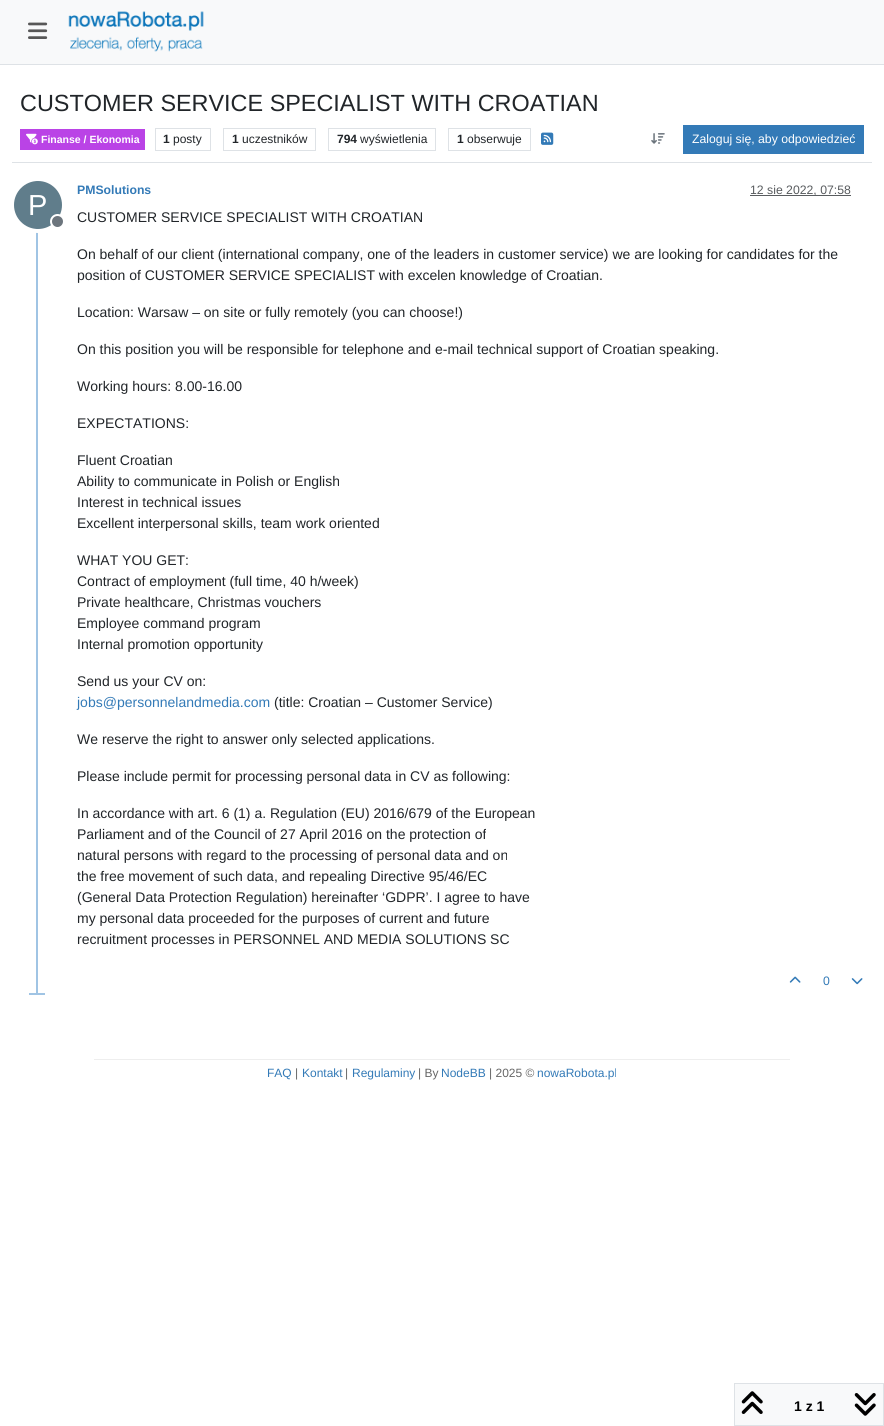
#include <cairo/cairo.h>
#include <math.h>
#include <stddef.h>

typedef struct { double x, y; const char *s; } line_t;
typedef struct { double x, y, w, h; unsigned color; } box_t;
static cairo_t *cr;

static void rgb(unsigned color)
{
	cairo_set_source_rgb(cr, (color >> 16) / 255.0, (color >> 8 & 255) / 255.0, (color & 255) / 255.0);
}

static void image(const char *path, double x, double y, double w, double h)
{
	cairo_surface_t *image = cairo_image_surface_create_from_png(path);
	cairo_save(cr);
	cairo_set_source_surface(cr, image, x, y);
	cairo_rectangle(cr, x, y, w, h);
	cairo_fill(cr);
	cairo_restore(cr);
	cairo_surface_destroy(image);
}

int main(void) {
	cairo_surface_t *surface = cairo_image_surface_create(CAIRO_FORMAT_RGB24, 884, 1426);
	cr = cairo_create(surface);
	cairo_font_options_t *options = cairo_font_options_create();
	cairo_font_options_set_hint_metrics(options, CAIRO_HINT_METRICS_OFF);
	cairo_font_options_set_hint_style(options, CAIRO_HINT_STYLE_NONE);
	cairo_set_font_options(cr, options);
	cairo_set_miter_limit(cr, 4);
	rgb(0xffffff);
	cairo_paint(cr);
	rgb(0xf8f9fa);
	cairo_rectangle(cr, 0, 0, 884, 64);
	cairo_fill(cr);
	rgb(0xdee2e6);
	cairo_rectangle(cr, 0, 64, 884, 1);
	cairo_fill(cr);
	image("img/1.png", 28, 22, 20, 17);
	image("img/2.png", 68, 11, 136, 41);
	cairo_rectangle(cr, 12, 162, 860, 1);
	cairo_fill(cr);
	rgb(0xba43e6);
	cairo_rectangle(cr, 20, 129, 125, 21);
	cairo_fill(cr);
	image("img/3.png", 26, 133, 12, 12);
	cairo_rectangle(cr, 155.5, 128.5, 55, 22);
	rgb(0xdee2e6);
	cairo_set_line_width(cr, 1);
	cairo_stroke(cr);
	cairo_rectangle(cr, 223.5, 128.5, 92, 22);
	cairo_stroke(cr);
	cairo_rectangle(cr, 328.5, 128.5, 107, 22);
	cairo_stroke(cr);
	cairo_rectangle(cr, 448.5, 128.5, 82, 22);
	cairo_stroke(cr);
	image("img/4.png", 541, 132, 13, 13);
	image("img/5.png", 651, 133, 14, 11);
	{
		static const box_t items[] = {
			{683, 125, 181, 29, 0x337ab7},
			{36, 179, 2, 816, 0xa0c4e4},
			{750, 195, 101, 1, 0x595c5f},
		};
		for (size_t i = 0; i < sizeof items / sizeof *items; i++) {
			rgb(items[i].color);
			cairo_rectangle(cr, items[i].x, items[i].y, items[i].w, items[i].h);
			cairo_fill(cr);
		}
	}
	cairo_arc(cr, 38, 205, 26, 0, 2 * M_PI);
	rgb(0xffffff);
	cairo_set_line_width(cr, 4);
	cairo_stroke(cr);
	rgb(0x607d8b);
	cairo_arc(cr, 38, 205, 24, 0, 2 * M_PI);
	cairo_fill(cr);
	rgb(0x6c757d);
	cairo_arc(cr, 57.5, 221.5, 6.5, 0, 2 * M_PI);
	cairo_fill_preserve(cr);
	rgb(0xffffff);
	cairo_set_line_width(cr, 2);
	cairo_stroke(cr);
	image("img/6.png", 789, 976, 12, 7);
	image("img/7.png", 851, 978, 12, 7);
	rgb(0xa0c4e4);
	cairo_rectangle(cr, 29, 993, 16, 2);
	cairo_fill(cr);
	rgb(0xf8f9fa);
	cairo_rectangle(cr, 734.5, 1383.5, 149, 42);
	cairo_fill_preserve(cr);
	rgb(0xdee2e6);
	cairo_set_line_width(cr, 1);
	cairo_stroke(cr);
	image("img/8.png", 741, 1391, 22, 23);
	image("img/9.png", 854, 1393, 22, 23);
	rgb(0xeeeeee);
	cairo_rectangle(cr, 94, 1059, 696, 1);
	cairo_fill(cr);
	cairo_select_font_face(cr, "Liberation Sans", CAIRO_FONT_SLANT_NORMAL, CAIRO_FONT_WEIGHT_NORMAL);
	cairo_set_font_size(cr, 23.4);
	rgb(0x212529);
	cairo_move_to(cr, 20, 111);
	cairo_show_text(cr, "CUSTOMER SERVICE SPECIALIST WITH CROATIAN");
	cairo_select_font_face(cr, "Liberation Sans", CAIRO_FONT_SLANT_NORMAL, CAIRO_FONT_WEIGHT_BOLD);
	cairo_set_font_size(cr, 10.5);
	rgb(0xffffff);
	cairo_move_to(cr, 41, 143);
	cairo_show_text(cr, "Finanse / Ekonomia");
	cairo_set_font_size(cr, 12);
	rgb(0x212529);
	cairo_move_to(cr, 163, 143);
	cairo_show_text(cr, "1");
	cairo_select_font_face(cr, "Liberation Sans", CAIRO_FONT_SLANT_NORMAL, CAIRO_FONT_WEIGHT_NORMAL);
	cairo_move_to(cr, 173, 143);
	cairo_show_text(cr, "posty");
	cairo_select_font_face(cr, "Liberation Sans", CAIRO_FONT_SLANT_NORMAL, CAIRO_FONT_WEIGHT_BOLD);
	cairo_move_to(cr, 232, 143);
	cairo_show_text(cr, "1");
	cairo_select_font_face(cr, "Liberation Sans", CAIRO_FONT_SLANT_NORMAL, CAIRO_FONT_WEIGHT_NORMAL);
	cairo_move_to(cr, 242, 143);
	cairo_show_text(cr, "uczestników");
	cairo_select_font_face(cr, "Liberation Sans", CAIRO_FONT_SLANT_NORMAL, CAIRO_FONT_WEIGHT_BOLD);
	cairo_move_to(cr, 337, 143);
	cairo_show_text(cr, "794");
	cairo_select_font_face(cr, "Liberation Sans", CAIRO_FONT_SLANT_NORMAL, CAIRO_FONT_WEIGHT_NORMAL);
	cairo_move_to(cr, 360, 143);
	cairo_show_text(cr, "wyświetlenia");
	cairo_select_font_face(cr, "Liberation Sans", CAIRO_FONT_SLANT_NORMAL, CAIRO_FONT_WEIGHT_BOLD);
	cairo_move_to(cr, 457, 143);
	cairo_show_text(cr, "1");
	cairo_select_font_face(cr, "Liberation Sans", CAIRO_FONT_SLANT_NORMAL, CAIRO_FONT_WEIGHT_NORMAL);
	cairo_move_to(cr, 467, 143);
	cairo_show_text(cr, "obserwuje");
	cairo_set_font_size(cr, 12.25);
	rgb(0xffffff);
	cairo_move_to(cr, 692, 143);
	cairo_show_text(cr, "Zaloguj się, aby odpowiedzieć");
	cairo_select_font_face(cr, "Liberation Sans", CAIRO_FONT_SLANT_NORMAL, CAIRO_FONT_WEIGHT_BOLD);
	rgb(0x337ab7);
	cairo_move_to(cr, 77, 194);
	cairo_show_text(cr, "PMSolutions");
	cairo_select_font_face(cr, "Liberation Sans", CAIRO_FONT_SLANT_NORMAL, CAIRO_FONT_WEIGHT_NORMAL);
	rgb(0x585b5e);
	cairo_move_to(cr, 750, 194);
	cairo_show_text(cr, "12 sie 2022, 07:58");
	cairo_set_font_size(cr, 29);
	rgb(0xffffff);
	cairo_move_to(cr, 28, 215);
	cairo_show_text(cr, "P");
	cairo_set_font_size(cr, 14);
	rgb(0x212529);
	{
		static const line_t items[] = {
			{77, 222, "CUSTOMER SERVICE SPECIALIST WITH CROATIAN"},
			{77, 259, "On behalf of our client (international company, one of the leaders in customer service) we are looking for candidates for the"},
			{77, 280, "position of CUSTOMER SERVICE SPECIALIST with excelen knowledge of Croatian."},
			{77, 317, "Location: Warsaw – on site or fully remotely (you can choose!)"},
			{77, 354, "On this position you will be responsible for telephone and e-mail technical support of Croatian speaking."},
			{77, 391, "Working hours: 8.00-16.00"},
			{77, 428, "EXPECTATIONS:"},
			{77, 465, "Fluent Croatian"},
			{77, 486, "Ability to communicate in Polish or English"},
			{77, 507, "Interest in technical issues"},
			{77, 528, "Excellent interpersonal skills, team work oriented"},
			{77, 565, "WHAT YOU GET:"},
			{77, 586, "Contract of employment (full time, 40 h/week)"},
			{77, 607, "Private healthcare, Christmas vouchers"},
			{77, 628, "Employee command program"},
			{77, 649, "Internal promotion opportunity"},
			{77, 686, "Send us your CV on:"},
		};
		for (size_t i = 0; i < sizeof items / sizeof *items; i++) {
			cairo_move_to(cr, items[i].x, items[i].y);
			cairo_show_text(cr, items[i].s);
		}
	}
	rgb(0x337ab7);
	cairo_move_to(cr, 77, 707);
	cairo_show_text(cr, "jobs@personnelandmedia.com");
	rgb(0x212529);
	{
		static const line_t items[] = {
			{274, 707, "(title: Croatian – Customer Service)"},
			{77, 744, "We reserve the right to answer only selected applications."},
			{77, 781, "Please include permit for processing personal data in CV as following:"},
			{77, 818, "In accordance with art. 6 (1) a. Regulation (EU) 2016/679 of the European"},
			{77, 839, "Parliament and of the Council of 27 April 2016 on the protection of"},
			{77, 860, "natural persons with regard to the processing of personal data and on"},
			{77, 881, "the free movement of such data, and repealing Directive 95/46/EC"},
			{77, 902, "(General Data Protection Regulation) hereinafter ‘GDPR’. I agree to have"},
			{77, 923, "my personal data proceeded for the purposes of current and future"},
			{77, 944, "recruitment processes in PERSONNEL AND MEDIA SOLUTIONS SC"},
		};
		for (size_t i = 0; i < sizeof items / sizeof *items; i++) {
			cairo_move_to(cr, items[i].x, items[i].y);
			cairo_show_text(cr, items[i].s);
		}
	}
	cairo_set_font_size(cr, 12.25);
	rgb(0x337ab7);
	cairo_move_to(cr, 823, 985);
	cairo_show_text(cr, "0");
	cairo_select_font_face(cr, "Liberation Sans", CAIRO_FONT_SLANT_NORMAL, CAIRO_FONT_WEIGHT_BOLD);
	cairo_set_font_size(cr, 14);
	rgb(0x000000);
	cairo_move_to(cr, 794, 1411);
	cairo_show_text(cr, "1 z 1");
	cairo_select_font_face(cr, "Liberation Sans", CAIRO_FONT_SLANT_NORMAL, CAIRO_FONT_WEIGHT_NORMAL);
	cairo_set_font_size(cr, 12);
	rgb(0x337ab7);
	cairo_move_to(cr, 267, 1077);
	cairo_show_text(cr, "FAQ");
	rgb(0x666666);
	cairo_move_to(cr, 295, 1077);
	cairo_show_text(cr, "|");
	rgb(0x337ab7);
	cairo_move_to(cr, 302, 1077);
	cairo_show_text(cr, "Kontakt");
	rgb(0x666666);
	cairo_move_to(cr, 345, 1077);
	cairo_show_text(cr, "|");
	rgb(0x337ab7);
	cairo_move_to(cr, 352, 1077);
	cairo_show_text(cr, "Regulaminy");
	rgb(0x666666);
	cairo_move_to(cr, 418, 1077);
	cairo_show_text(cr, "| By");
	rgb(0x337ab7);
	cairo_move_to(cr, 441, 1077);
	cairo_show_text(cr, "NodeBB");
	rgb(0x666666);
	cairo_move_to(cr, 489, 1077);
	cairo_show_text(cr, "| 2025 ©");
	rgb(0x337ab7);
	cairo_move_to(cr, 537, 1077);
	cairo_show_text(cr, "nowaRobota.pl");
	cairo_surface_write_to_png(surface, "page.png");
	cairo_font_options_destroy(options);
	cairo_destroy(cr);
	cairo_surface_destroy(surface);
	return 0;
}
